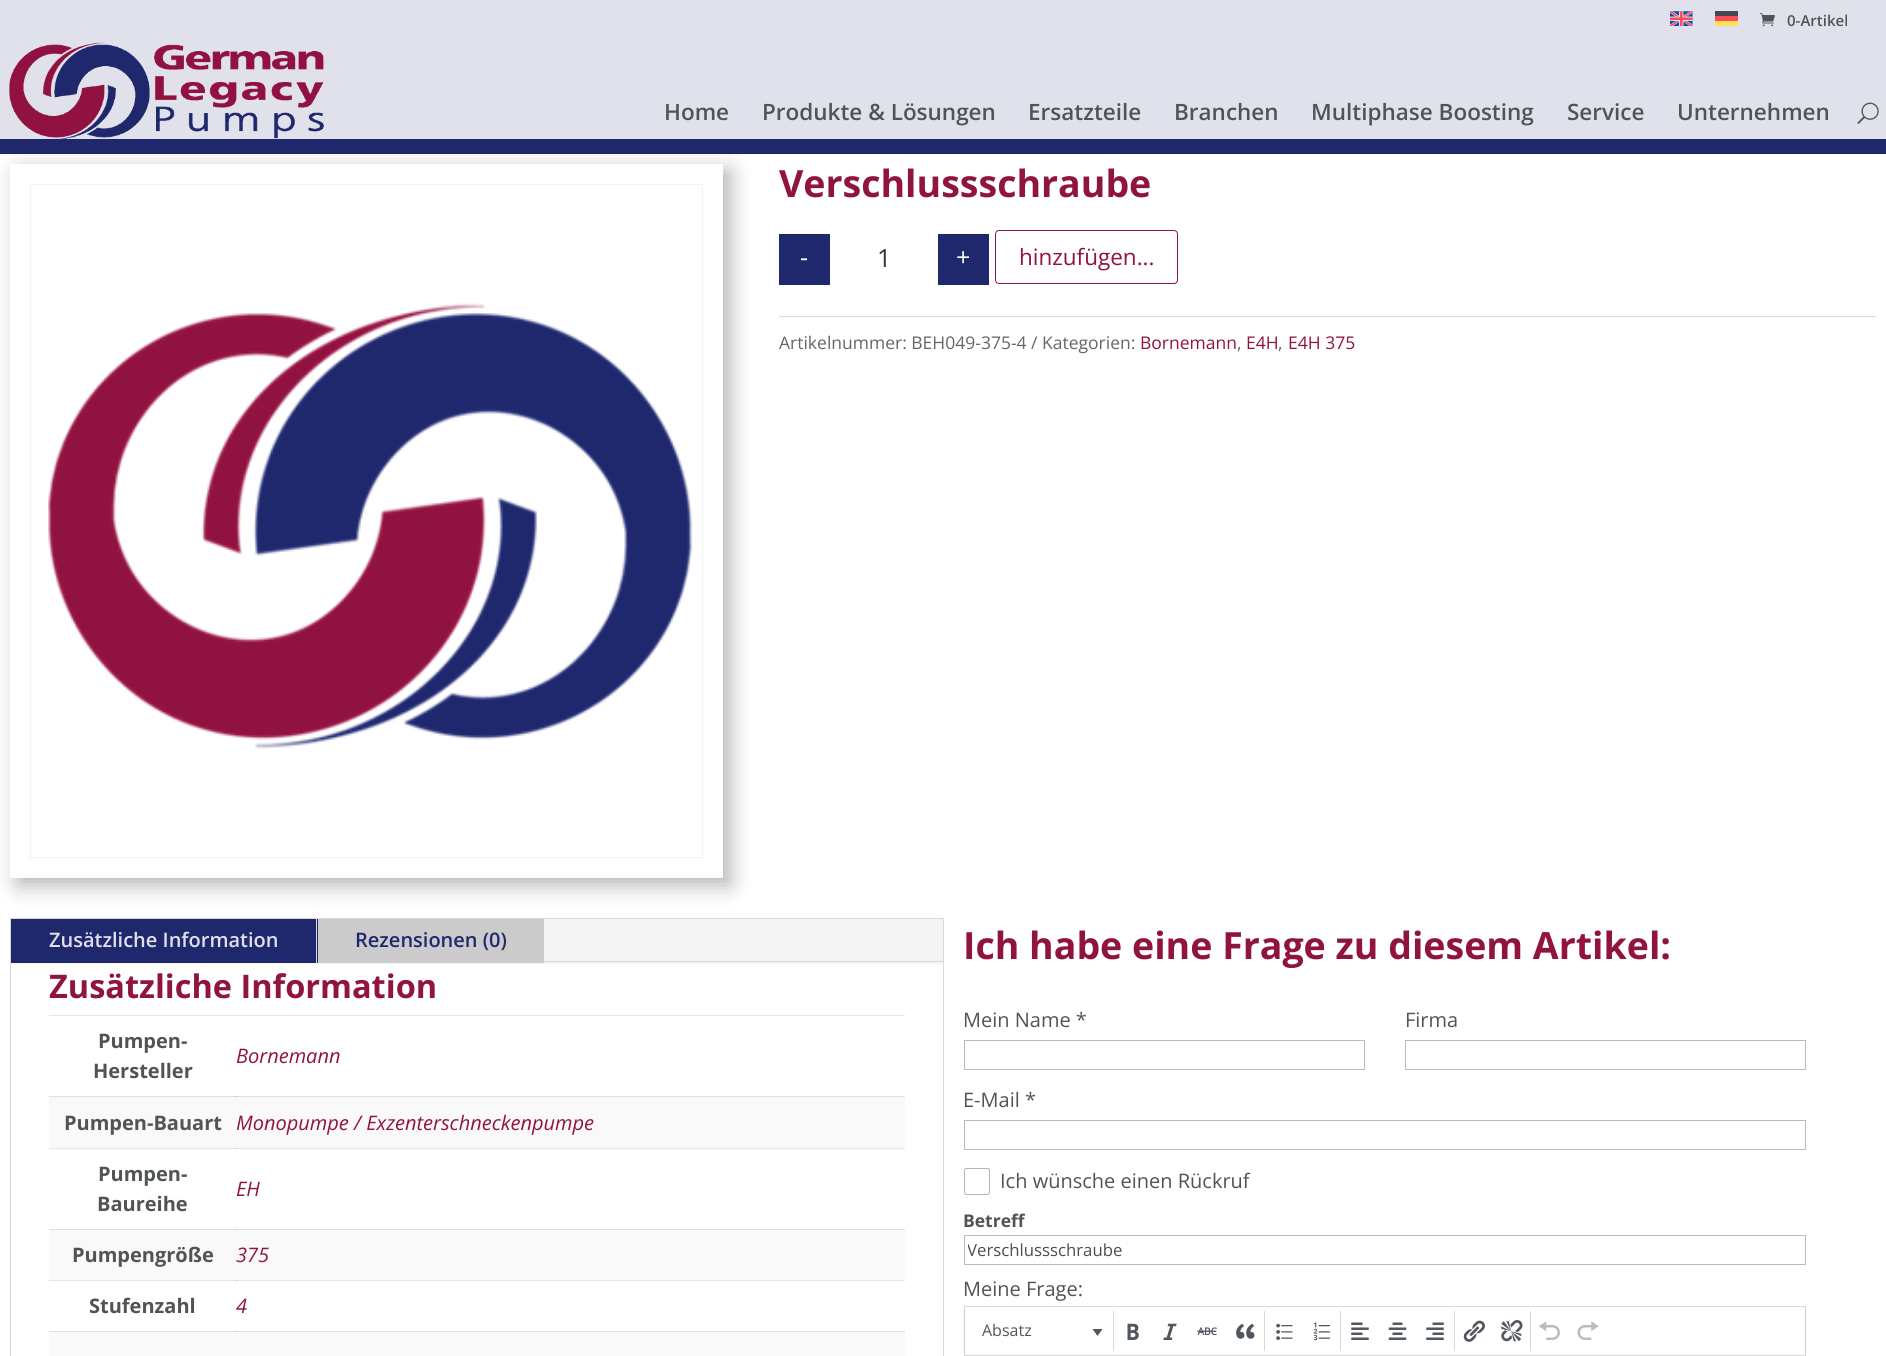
import math
import cairo

surface = cairo.ImageSurface(cairo.FORMAT_RGB24, 1886, 1356)
ctx = cairo.Context(surface)
options = cairo.FontOptions()
options.set_hint_metrics(cairo.HINT_METRICS_OFF)
options.set_hint_style(cairo.HINT_STYLE_NONE)
ctx.set_font_options(options)
ctx.set_miter_limit(4)


def round_rect(x, y, w, h, r):
    ctx.new_sub_path()
    for i, (u, v) in enumerate([(x + w - r, y + h - r), (x + r, y + h - r), (x + r, y + r), (x + w - r, y + r)]):
        ctx.arc(u, v, r, i * math.pi / 2, (i + 1) * math.pi / 2)
    ctx.close_path()


def shadow(x, y, w, h, r, blur, alpha):
    ctx.push_group_with_content(cairo.CONTENT_ALPHA)
    ctx.set_operator(cairo.OPERATOR_SOURCE)
    for i in range(15, -16, -2):
        e = blur * i / 6
        if min(w, h) + 2 * e > 0:
            ctx.set_source_rgba(0, 0, 0, alpha * math.erfc((i - 1) / 8.5) / 2)
            round_rect(x - e, y - e, w + 2 * e, h + 2 * e, max(0, min(r + e + blur * .6, min(w, h) / 2 + e)))
            ctx.fill()
    ctx.mask(ctx.pop_group())


def picture(path, x, y, w, h):
    ctx.save()
    ctx.set_source_surface(cairo.ImageSurface.create_from_png(path), x, y)
    ctx.rectangle(x, y, w, h)
    ctx.fill()
    ctx.restore()


ctx.set_source_rgb(1, 1, 1)
ctx.paint()
ctx.set_source_rgb(0.902, 0.902, 0.902)
ctx.rectangle(49, 1148, 189, 1)
ctx.fill()
ctx.rectangle(49, 1280, 189, 1)
ctx.fill()
ctx.set_source_rgb(0.125, 0.157, 0.427)
ctx.rectangle(0, 139, 1886, 15)
ctx.fill()
ctx.save()
ctx.set_fill_rule(cairo.FILL_RULE_EVEN_ODD)
ctx.new_path()
ctx.move_to(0, 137)
ctx.line_to(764, 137)
ctx.line_to(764, 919)
ctx.line_to(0, 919)
ctx.close_path()
ctx.move_to(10, 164)
ctx.line_to(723, 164)
ctx.line_to(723, 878)
ctx.line_to(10, 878)
ctx.close_path()
ctx.clip()
ctx.set_source_rgb(0, 0, 0)
shadow(18, 171, 712, 714, 0, 11, 0.3)
ctx.restore()
ctx.set_source_rgb(0.882, 0.882, 0.918)
ctx.rectangle(0, 0, 1886, 139)
ctx.fill()
picture("img1.png", 1670, 11, 23, 15)
ctx.set_source_rgb(0.275, 0.275, 0.333)
ctx.rectangle(1715, 11, 23, 5)
ctx.fill()
ctx.set_source_rgb(1, 0.294, 0.333)
ctx.rectangle(1715, 16, 23, 5)
ctx.fill()
ctx.set_source_rgb(1, 0.882, 0.353)
ctx.rectangle(1715, 21, 23, 5)
ctx.fill()
picture("img2.png", 1760, 13, 15, 14)
ctx.select_font_face("Open Sans SemiBold")
ctx.set_font_size(15)
ctx.set_source_rgb(0.314, 0.329, 0.337)
ctx.move_to(1787, 26)
ctx.show_text("0-Artikel")
picture("img3.png", 9, 42, 315, 97)
ctx.set_font_size(22.5)
ctx.move_to(664, 120)
ctx.show_text("Home")
ctx.move_to(762, 120)
ctx.show_text("Produkte & Lösungen")
ctx.move_to(1028, 120)
ctx.show_text("Ersatzteile")
ctx.move_to(1174, 120)
ctx.show_text("Branchen")
ctx.move_to(1311, 120)
ctx.show_text("Multiphase Boosting")
ctx.move_to(1567, 120)
ctx.show_text("Service")
ctx.move_to(1677, 120)
ctx.show_text("Unternehmen")
picture("img4.png", 1857, 102, 22, 22)
ctx.set_source_rgb(0.114, 0.141, 0.384)
ctx.rectangle(1501, 139, 1, 11)
ctx.fill()
ctx.rectangle(30.5, 184.5, 672, 673)
ctx.set_source_rgb(0.949, 0.949, 0.949)
ctx.set_line_width(1)
ctx.stroke()
picture("img5.png", 48, 303, 645, 446)
ctx.select_font_face("Open Sans", cairo.FONT_SLANT_NORMAL, cairo.FONT_WEIGHT_BOLD)
ctx.set_font_size(37.5)
ctx.set_source_rgb(0.569, 0.078, 0.251)
ctx.move_to(779, 197)
ctx.show_text("Verschlussschraube")
ctx.set_source_rgb(0.125, 0.157, 0.427)
ctx.rectangle(779, 234, 51, 51)
ctx.fill()
ctx.select_font_face("Open Sans")
ctx.set_font_size(25)
ctx.set_source_rgb(1, 1, 1)
ctx.move_to(800, 266)
ctx.show_text("-")
ctx.set_source_rgb(0.2, 0.2, 0.2)
ctx.move_to(877, 267)
ctx.show_text("1")
ctx.set_source_rgb(0.125, 0.157, 0.427)
ctx.rectangle(938, 234, 51, 51)
ctx.fill()
ctx.set_source_rgb(1, 1, 1)
ctx.move_to(956, 266)
ctx.show_text("+")
round_rect(995.5, 230.5, 182, 53, 3.5)
ctx.set_source_rgb(0.569, 0.078, 0.251)
ctx.stroke()
ctx.set_font_size(22.5)
ctx.move_to(1019, 265)
ctx.show_text("hinzufügen...")
ctx.set_source_rgb(0.855, 0.855, 0.855)
ctx.rectangle(779, 316, 1097, 1)
ctx.fill()
ctx.set_font_size(17.5)
ctx.set_source_rgb(0.4, 0.4, 0.4)
ctx.move_to(779, 349)
ctx.show_text("Artikelnummer: BEH049-375-4 / Kategorien:")
ctx.set_source_rgb(0.569, 0.078, 0.251)
ctx.move_to(1140, 349)
ctx.show_text("Bornemann")
ctx.set_source_rgb(0.4, 0.4, 0.4)
ctx.move_to(1237, 349)
ctx.show_text(",")
ctx.set_source_rgb(0.569, 0.078, 0.251)
ctx.move_to(1246, 349)
ctx.show_text("E4H")
ctx.set_source_rgb(0.4, 0.4, 0.4)
ctx.move_to(1278, 349)
ctx.show_text(",")
ctx.set_source_rgb(0.569, 0.078, 0.251)
ctx.move_to(1288, 349)
ctx.show_text("E4H 375")
ctx.rectangle(10.5, 918.5, 933, 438)
ctx.set_source_rgb(0.851, 0.851, 0.851)
ctx.stroke()
ctx.set_source_rgb(0.957, 0.957, 0.957)
ctx.rectangle(11, 919, 932, 45)
ctx.fill()
ctx.set_source_rgb(0.125, 0.157, 0.427)
ctx.rectangle(11, 919, 307, 44)
ctx.fill()
ctx.set_source_rgb(0.851, 0.851, 0.851)
ctx.rectangle(316, 919, 1, 44)
ctx.fill()
ctx.select_font_face("Open Sans SemiBold")
ctx.set_font_size(20)
ctx.set_source_rgb(0.882, 0.882, 0.918)
ctx.move_to(49, 947)
ctx.show_text("Zusätzliche Information")
ctx.set_source_rgb(0.796, 0.796, 0.8)
ctx.rectangle(318, 919, 226, 44)
ctx.fill()
ctx.set_source_rgb(0.125, 0.157, 0.427)
ctx.move_to(355, 947)
ctx.show_text("Rezensionen (0)")
ctx.set_source_rgb(0.851, 0.851, 0.851)
ctx.rectangle(544, 961, 399, 1)
ctx.fill()
ctx.select_font_face("Open Sans", cairo.FONT_SLANT_NORMAL, cairo.FONT_WEIGHT_BOLD)
ctx.set_font_size(32.5)
ctx.set_source_rgb(0.569, 0.078, 0.251)
ctx.move_to(49, 998)
ctx.show_text("Zusätzliche Information")
ctx.set_source_rgb(0.902, 0.902, 0.902)
ctx.rectangle(49, 1015, 856, 1)
ctx.fill()
ctx.set_font_size(20)
ctx.set_source_rgb(0.314, 0.329, 0.337)
ctx.move_to(98, 1048)
ctx.show_text("Pumpen-")
ctx.move_to(93, 1078)
ctx.show_text("Hersteller")
ctx.set_source_rgb(0.878, 0.878, 0.878)
ctx.rectangle(49, 1096, 856, 1)
ctx.fill()
ctx.set_source_rgb(0.792, 0.792, 0.792)
ctx.rectangle(236, 1096, 2, 1)
ctx.fill()
ctx.select_font_face("Open Sans", cairo.FONT_SLANT_ITALIC)
ctx.set_source_rgb(0.569, 0.078, 0.251)
ctx.move_to(236, 1063)
ctx.show_text("Bornemann")
ctx.set_source_rgb(0.976, 0.976, 0.976)
ctx.rectangle(49, 1097, 856, 51)
ctx.fill()
ctx.select_font_face("Open Sans", cairo.FONT_SLANT_NORMAL, cairo.FONT_WEIGHT_BOLD)
ctx.set_source_rgb(0.314, 0.329, 0.337)
ctx.move_to(64, 1130)
ctx.show_text("Pumpen-Bauart")
ctx.set_source_rgb(0.902, 0.902, 0.902)
ctx.rectangle(236, 1148, 669, 1)
ctx.fill()
ctx.set_source_rgb(0.812, 0.812, 0.812)
ctx.rectangle(236, 1148, 2, 1)
ctx.fill()
ctx.select_font_face("Open Sans", cairo.FONT_SLANT_ITALIC)
ctx.set_source_rgb(0.569, 0.078, 0.251)
ctx.move_to(236, 1130)
ctx.show_text("Monopumpe / Exzenterschneckenpumpe")
ctx.select_font_face("Open Sans", cairo.FONT_SLANT_NORMAL, cairo.FONT_WEIGHT_BOLD)
ctx.set_source_rgb(0.314, 0.329, 0.337)
ctx.move_to(98, 1181)
ctx.show_text("Pumpen-")
ctx.move_to(97, 1211)
ctx.show_text("Baureihe")
ctx.set_source_rgb(0.878, 0.878, 0.878)
ctx.rectangle(49, 1229, 856, 1)
ctx.fill()
ctx.set_source_rgb(0.792, 0.792, 0.792)
ctx.rectangle(236, 1229, 2, 1)
ctx.fill()
ctx.select_font_face("Open Sans", cairo.FONT_SLANT_ITALIC)
ctx.set_source_rgb(0.569, 0.078, 0.251)
ctx.move_to(236, 1196)
ctx.show_text("EH")
ctx.set_source_rgb(0.976, 0.976, 0.976)
ctx.rectangle(49, 1230, 856, 50)
ctx.fill()
ctx.select_font_face("Open Sans", cairo.FONT_SLANT_NORMAL, cairo.FONT_WEIGHT_BOLD)
ctx.set_source_rgb(0.314, 0.329, 0.337)
ctx.move_to(72, 1262)
ctx.show_text("Pumpengröße")
ctx.set_source_rgb(0.902, 0.902, 0.902)
ctx.rectangle(236, 1280, 669, 1)
ctx.fill()
ctx.set_source_rgb(0.812, 0.812, 0.812)
ctx.rectangle(236, 1280, 2, 1)
ctx.fill()
ctx.select_font_face("Open Sans", cairo.FONT_SLANT_ITALIC)
ctx.set_source_rgb(0.569, 0.078, 0.251)
ctx.move_to(236, 1262)
ctx.show_text("375")
ctx.select_font_face("Open Sans", cairo.FONT_SLANT_NORMAL, cairo.FONT_WEIGHT_BOLD)
ctx.set_source_rgb(0.314, 0.329, 0.337)
ctx.move_to(89, 1313)
ctx.show_text("Stufenzahl")
ctx.set_source_rgb(0.878, 0.878, 0.878)
ctx.rectangle(49, 1331, 856, 1)
ctx.fill()
ctx.set_source_rgb(0.792, 0.792, 0.792)
ctx.rectangle(236, 1331, 2, 1)
ctx.fill()
ctx.select_font_face("Open Sans", cairo.FONT_SLANT_ITALIC)
ctx.set_source_rgb(0.569, 0.078, 0.251)
ctx.move_to(236, 1313)
ctx.show_text("4")
ctx.set_source_rgb(0.976, 0.976, 0.976)
ctx.rectangle(49, 1332, 856, 24)
ctx.fill()
ctx.select_font_face("Open Sans", cairo.FONT_SLANT_NORMAL, cairo.FONT_WEIGHT_BOLD)
ctx.set_font_size(37.5)
ctx.set_source_rgb(0.569, 0.078, 0.251)
ctx.move_to(963, 959)
ctx.show_text("Ich habe eine Frage zu diesem Artikel:")
ctx.select_font_face("Open Sans")
ctx.set_font_size(20)
ctx.set_source_rgb(0.314, 0.329, 0.337)
ctx.move_to(963, 1027)
ctx.show_text("Mein Name *")
ctx.rectangle(964.5, 1040.5, 400, 29)
ctx.set_source_rgb(0.733, 0.733, 0.733)
ctx.stroke()
ctx.set_source_rgb(0.314, 0.329, 0.337)
ctx.move_to(1405, 1027)
ctx.show_text("Firma")
ctx.rectangle(1405.5, 1040.5, 400, 29)
ctx.set_source_rgb(0.733, 0.733, 0.733)
ctx.stroke()
ctx.set_source_rgb(0.314, 0.329, 0.337)
ctx.move_to(963, 1107)
ctx.show_text("E-Mail *")
ctx.rectangle(964.5, 1120.5, 841, 29)
ctx.set_source_rgb(0.733, 0.733, 0.733)
ctx.stroke()
round_rect(964.5, 1168.5, 25, 26, 2)
ctx.set_source_rgb(0.678, 0.71, 0.741)
ctx.stroke()
ctx.set_source_rgb(0.314, 0.329, 0.337)
ctx.move_to(1000, 1188)
ctx.show_text("Ich wünsche einen Rückruf")
ctx.select_font_face("Open Sans", cairo.FONT_SLANT_NORMAL, cairo.FONT_WEIGHT_BOLD)
ctx.set_font_size(17.5)
ctx.move_to(963, 1227)
ctx.show_text("Betreff")
ctx.rectangle(964.5, 1235.5, 841, 29)
ctx.set_source_rgb(0.733, 0.733, 0.733)
ctx.stroke()
ctx.save()
ctx.rectangle(968, 1239, 835, 22)
ctx.clip()
ctx.select_font_face("Open Sans")
ctx.set_font_size(16.75)
ctx.set_source_rgb(0.306, 0.306, 0.306)
ctx.move_to(967, 1256)
ctx.show_text("Verschlussschraube")
ctx.restore()
ctx.select_font_face("Open Sans")
ctx.set_font_size(20)
ctx.set_source_rgb(0.314, 0.329, 0.337)
ctx.move_to(963, 1296)
ctx.show_text("Meine Frage:")
ctx.rectangle(964.5, 1306.5, 841, 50)
ctx.set_source_rgb(0.863, 0.863, 0.871)
ctx.stroke()
ctx.save()
ctx.set_fill_rule(cairo.FILL_RULE_EVEN_ODD)
ctx.new_path()
ctx.move_to(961, 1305)
ctx.line_to(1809, 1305)
ctx.line_to(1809, 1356)
ctx.line_to(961, 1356)
ctx.close_path()
ctx.move_to(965, 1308)
ctx.line_to(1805, 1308)
ctx.line_to(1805, 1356)
ctx.line_to(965, 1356)
ctx.close_path()
ctx.clip()
ctx.set_source_rgb(0, 0, 0)
shadow(965, 1309, 840, 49, 0, 1, 0.2)
ctx.restore()
ctx.rectangle(965, 1355, 840, 1)
ctx.fill()
ctx.set_font_size(16)
ctx.set_source_rgb(0.314, 0.341, 0.369)
ctx.move_to(982, 1336)
ctx.show_text("Absatz")
ctx.new_path()
ctx.move_to(1092.5, 1329)
ctx.line_to(1102.5, 1329)
ctx.line_to(1097.5, 1336)
ctx.close_path()
ctx.fill()
ctx.set_source_rgb(0.851, 0.851, 0.851)
ctx.rectangle(1113, 1311, 1, 40)
ctx.fill()
picture("img6.png", 1127, 1323, 12, 17)
picture("img7.png", 1163, 1323, 14, 17)
picture("img8.png", 1197, 1327, 20, 9)
picture("img9.png", 1236, 1323, 19, 16)
ctx.rectangle(1264, 1311, 1, 40)
ctx.fill()
picture("img10.png", 1276, 1323, 17, 17)
picture("img11.png", 1313, 1322, 17, 19)
ctx.rectangle(1340, 1311, 1, 40)
ctx.fill()
picture("img12.png", 1351, 1322, 18, 18)
picture("img13.png", 1388, 1322, 19, 18)
picture("img14.png", 1426, 1322, 18, 18)
ctx.rectangle(1454, 1311, 1, 40)
ctx.fill()
picture("img15.png", 1463, 1320, 22, 22)
picture("img16.png", 1501, 1320, 22, 22)
ctx.rectangle(1530, 1311, 1, 40)
ctx.fill()
picture("img17.png", 1539, 1321, 21, 19)
picture("img18.png", 1577, 1321, 22, 19)
surface.write_to_png("page.png")
